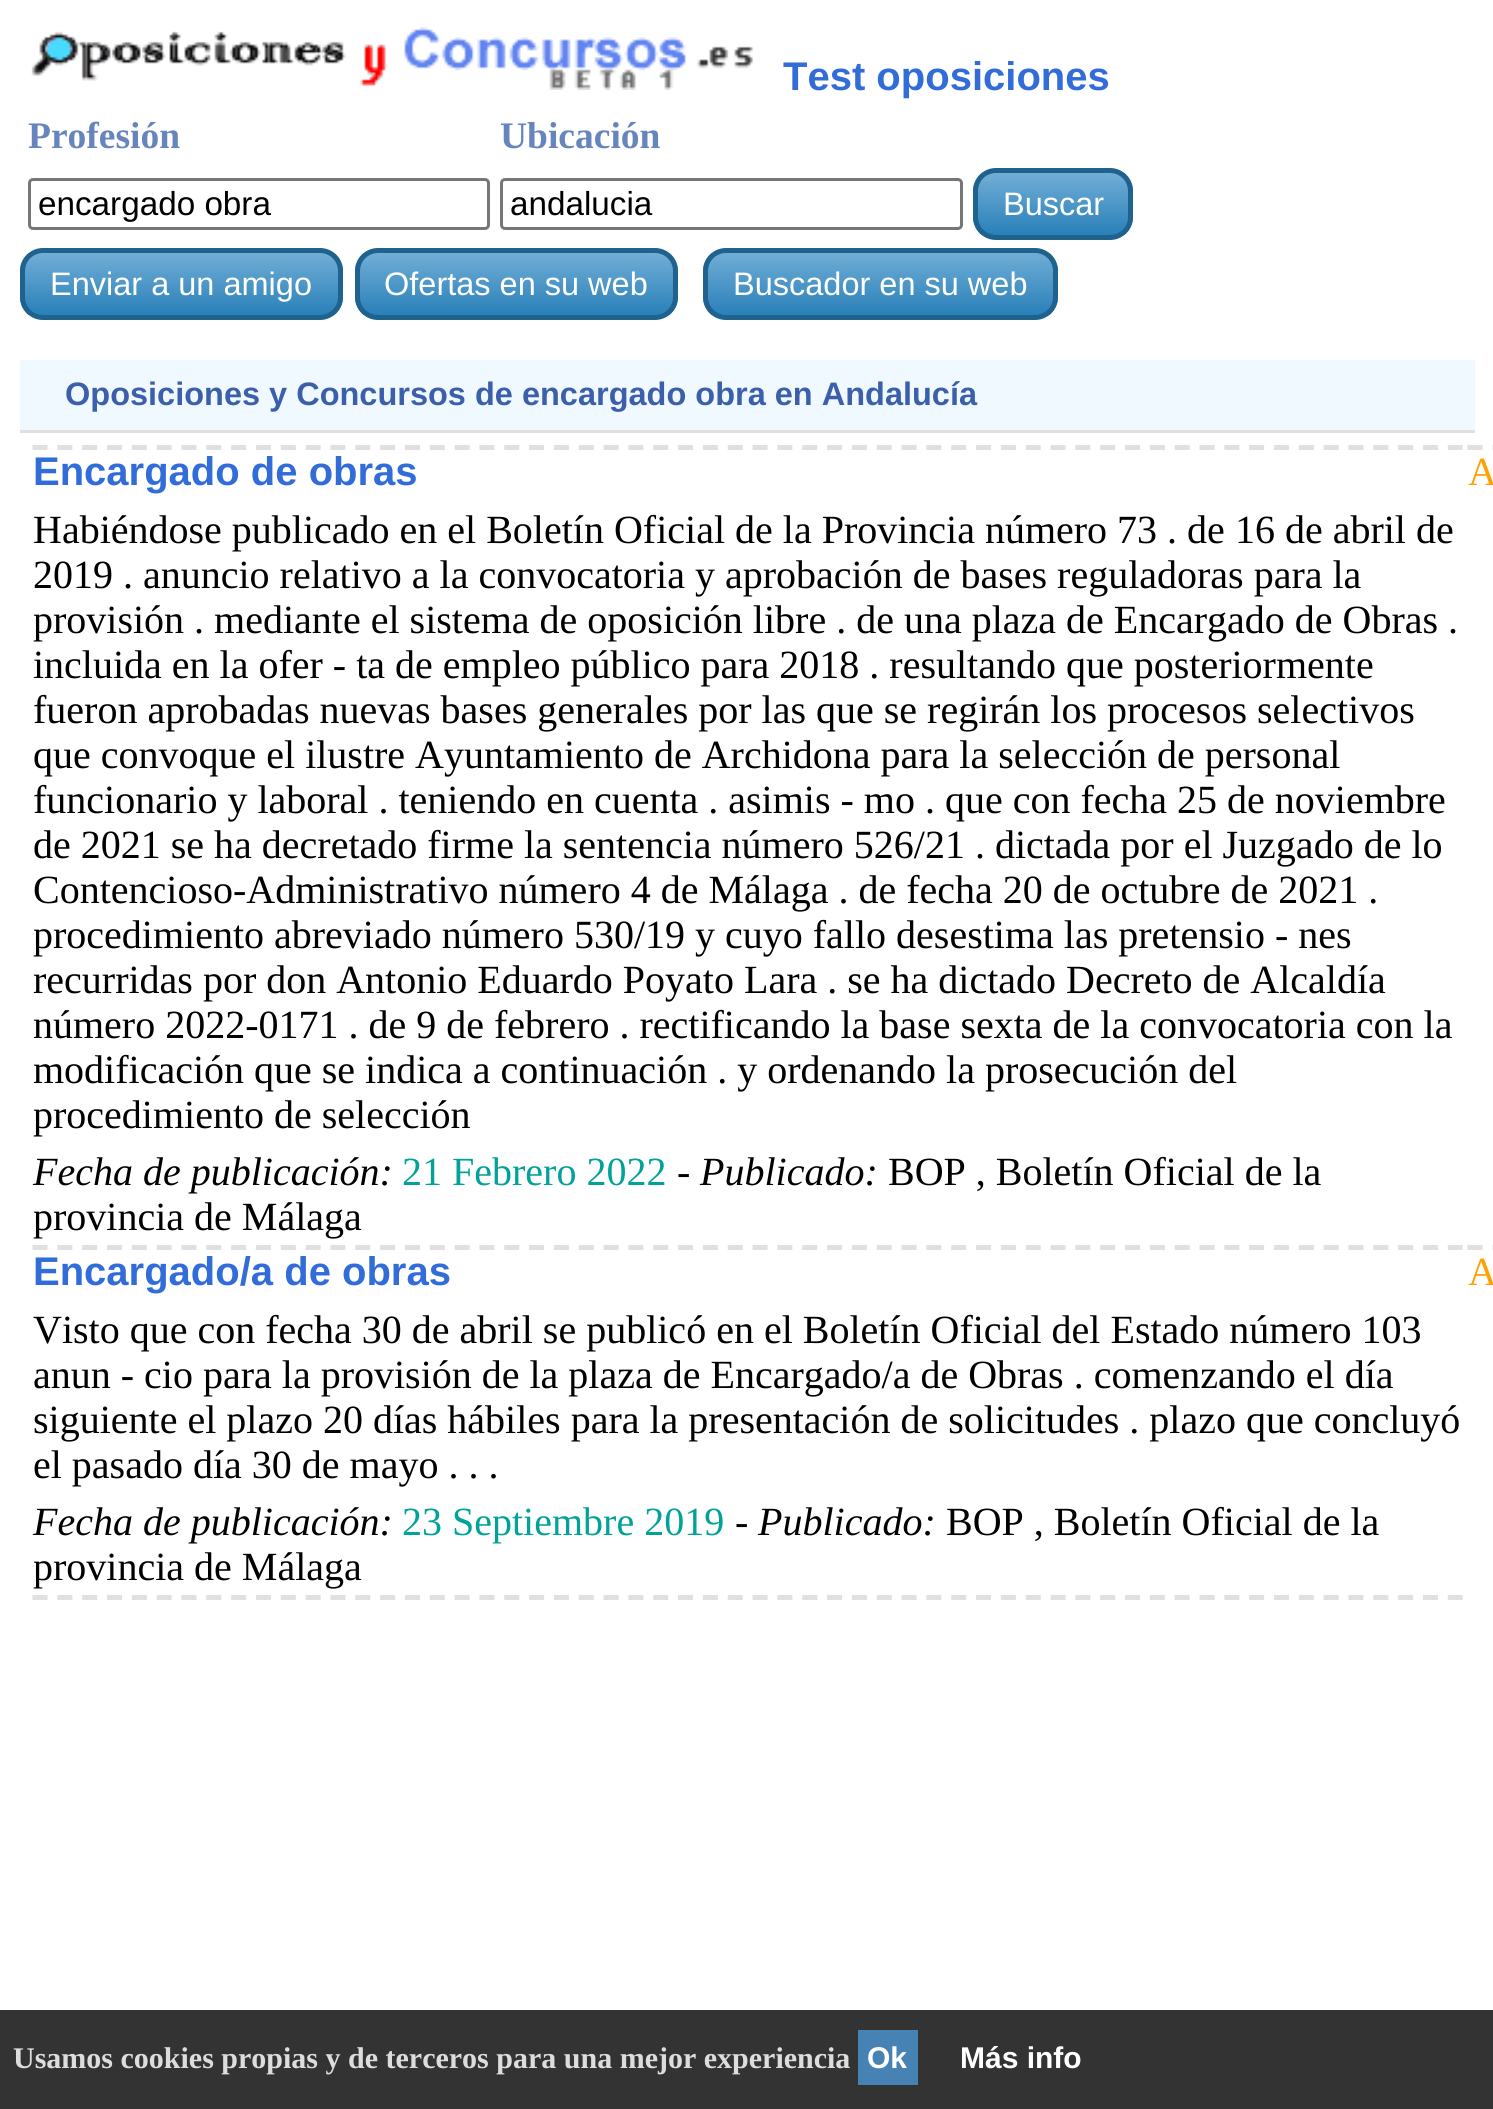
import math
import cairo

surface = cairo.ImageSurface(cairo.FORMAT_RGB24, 1493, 2109)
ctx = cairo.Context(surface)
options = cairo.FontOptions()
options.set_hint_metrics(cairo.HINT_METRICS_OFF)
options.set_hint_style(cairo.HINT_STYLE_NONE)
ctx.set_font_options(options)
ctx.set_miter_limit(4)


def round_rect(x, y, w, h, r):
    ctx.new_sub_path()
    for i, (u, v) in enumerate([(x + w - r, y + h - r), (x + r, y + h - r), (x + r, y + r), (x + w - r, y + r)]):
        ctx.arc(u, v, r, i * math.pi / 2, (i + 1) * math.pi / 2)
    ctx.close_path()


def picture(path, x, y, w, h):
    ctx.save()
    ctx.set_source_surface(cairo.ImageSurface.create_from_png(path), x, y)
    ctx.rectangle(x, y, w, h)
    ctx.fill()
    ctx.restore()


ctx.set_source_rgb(1, 1, 1)
ctx.paint()
picture("img1.png", 31, 27, 722, 63)
ctx.select_font_face("Liberation Sans", cairo.FONT_SLANT_NORMAL, cairo.FONT_WEIGHT_BOLD)
ctx.set_font_size(40)
ctx.set_source_rgb(0.196, 0.424, 0.851)
ctx.move_to(783, 90)
ctx.show_text("Test oposiciones")
ctx.select_font_face("Liberation Serif", cairo.FONT_SLANT_NORMAL, cairo.FONT_WEIGHT_BOLD)
ctx.set_font_size(37.5)
ctx.set_source_rgb(0.4, 0.522, 0.749)
ctx.move_to(28, 148)
ctx.show_text("Profesión")
ctx.move_to(500, 148)
ctx.show_text("Ubicación")
round_rect(29.5, 179.5, 459, 49, 3.5)
ctx.set_source_rgb(0.463, 0.463, 0.463)
ctx.set_line_width(3)
ctx.stroke()
ctx.select_font_face("Liberation Sans")
ctx.set_font_size(33.25)
ctx.set_source_rgb(0, 0, 0)
ctx.move_to(38, 215)
ctx.show_text("encargado obra")
round_rect(501.5, 179.5, 460, 49, 3.5)
ctx.set_source_rgb(0.463, 0.463, 0.463)
ctx.stroke()
ctx.set_source_rgb(0, 0, 0)
ctx.move_to(510, 215)
ctx.show_text("andalucia")
ctx.save()
round_rect(973, 168, 160, 72, 23)
ctx.clip()
gradient = cairo.LinearGradient(1053, 173, 1053, 235)
gradient.add_color_stop_rgba(0, 0.443, 0.682, 0.839, 1)
gradient.add_color_stop_rgba(1, 0.161, 0.502, 0.725, 1)
ctx.set_source(gradient)
ctx.rectangle(973, 173, 160, 62)
ctx.fill()
ctx.restore()
round_rect(975.5, 170.5, 155, 67, 20.5)
ctx.set_source_rgb(0.122, 0.384, 0.553)
ctx.set_line_width(5)
ctx.stroke()
ctx.set_font_size(32.5)
ctx.set_source_rgb(1, 1, 1)
ctx.move_to(1003, 215)
ctx.show_text("Buscar")
ctx.save()
round_rect(20, 248, 323, 72, 23)
ctx.clip()
gradient = cairo.LinearGradient(181, 253, 181, 315)
gradient.add_color_stop_rgba(0, 0.443, 0.682, 0.839, 1)
gradient.add_color_stop_rgba(1, 0.161, 0.502, 0.725, 1)
ctx.set_source(gradient)
ctx.rectangle(20, 253, 323, 62)
ctx.fill()
ctx.restore()
round_rect(22.5, 250.5, 318, 67, 20.5)
ctx.set_source_rgb(0.122, 0.384, 0.553)
ctx.stroke()
ctx.set_source_rgb(1, 1, 1)
ctx.move_to(50, 295)
ctx.show_text("Enviar a un amigo")
ctx.save()
round_rect(355, 248, 323, 72, 23)
ctx.clip()
gradient = cairo.LinearGradient(516, 253, 516, 315)
gradient.add_color_stop_rgba(0, 0.443, 0.682, 0.839, 1)
gradient.add_color_stop_rgba(1, 0.161, 0.502, 0.725, 1)
ctx.set_source(gradient)
ctx.rectangle(355, 253, 323, 62)
ctx.fill()
ctx.restore()
round_rect(357.5, 250.5, 318, 67, 20.5)
ctx.set_source_rgb(0.122, 0.384, 0.553)
ctx.stroke()
ctx.set_source_rgb(1, 1, 1)
ctx.move_to(384, 295)
ctx.show_text("Ofertas en su web")
ctx.save()
round_rect(703, 248, 355, 72, 23)
ctx.clip()
gradient = cairo.LinearGradient(880, 252, 880, 315)
gradient.add_color_stop_rgba(0, 0.443, 0.682, 0.839, 1)
gradient.add_color_stop_rgba(1, 0.161, 0.502, 0.725, 1)
ctx.set_source(gradient)
ctx.rectangle(703, 253, 355, 62)
ctx.fill()
ctx.restore()
round_rect(705.5, 250.5, 350, 67, 20.5)
ctx.set_source_rgb(0.122, 0.384, 0.553)
ctx.stroke()
ctx.set_source_rgb(1, 1, 1)
ctx.move_to(733, 295)
ctx.show_text("Buscador en su web")
ctx.set_source_rgb(0.941, 0.973, 1)
ctx.rectangle(20, 360, 1455, 70)
ctx.fill()
ctx.set_source_rgb(0.878, 0.878, 0.878)
ctx.rectangle(20, 430, 1455, 3)
ctx.fill()
ctx.select_font_face("Liberation Sans", cairo.FONT_SLANT_NORMAL, cairo.FONT_WEIGHT_BOLD)
ctx.set_source_rgb(0.231, 0.373, 0.671)
ctx.move_to(65, 405)
ctx.show_text("Oposiciones y Concursos de encargado obra en Andalucía")
ctx.new_path()
ctx.move_to(32.5, 447.5)
ctx.line_to(1462.5, 447.5)
ctx.set_source_rgb(0.878, 0.878, 0.878)
ctx.set_dash([15, 9.83])
ctx.stroke()
ctx.set_font_size(40)
ctx.set_source_rgb(0.196, 0.424, 0.851)
ctx.move_to(33, 485)
ctx.show_text("Encargado de obras")
ctx.select_font_face("Liberation Serif")
ctx.set_source_rgb(0, 0, 0)
ctx.move_to(33, 543)
ctx.show_text("Habiéndose publicado en el Boletín Oficial de la Provincia número 73 . de 16 de abril de")
ctx.move_to(33, 588)
ctx.show_text("2019 . anuncio relativo a la convocatoria y aprobación de bases reguladoras para la")
ctx.move_to(33, 633)
ctx.show_text("provisión . mediante el sistema de oposición libre . de una plaza de Encargado de Obras .")
ctx.move_to(33, 678)
ctx.show_text("incluida en la ofer - ta de empleo público para 2018 . resultando que posteriormente")
ctx.move_to(33, 723)
ctx.show_text("fueron aprobadas nuevas bases generales por las que se regirán los procesos selectivos")
ctx.move_to(33, 768)
ctx.show_text("que convoque el ilustre Ayuntamiento de Archidona para la selección de personal")
ctx.move_to(33, 813)
ctx.show_text("funcionario y laboral . teniendo en cuenta . asimis - mo . que con fecha 25 de noviembre")
ctx.move_to(33, 858)
ctx.show_text("de 2021 se ha decretado firme la sentencia número 526/21 . dictada por el Juzgado de lo")
ctx.move_to(33, 903)
ctx.show_text("Contencioso-Administrativo número 4 de Málaga . de fecha 20 de octubre de 2021 .")
ctx.move_to(33, 948)
ctx.show_text("procedimiento abreviado número 530/19 y cuyo fallo desestima las pretensio - nes")
ctx.move_to(33, 993)
ctx.show_text("recurridas por don Antonio Eduardo Poyato Lara . se ha dictado Decreto de Alcaldía")
ctx.move_to(33, 1038)
ctx.show_text("número 2022-0171 . de 9 de febrero . rectificando la base sexta de la convocatoria con la")
ctx.move_to(33, 1083)
ctx.show_text("modificación que se indica a continuación . y ordenando la prosecución del")
ctx.move_to(33, 1128)
ctx.show_text("procedimiento de selección")
ctx.select_font_face("Liberation Serif", cairo.FONT_SLANT_ITALIC)
ctx.move_to(33, 1185)
ctx.show_text("Fecha de publicación:")
ctx.select_font_face("Liberation Serif")
ctx.set_source_rgb(0.004, 0.635, 0.592)
ctx.move_to(402, 1185)
ctx.show_text("21 Febrero 2022")
ctx.set_source_rgb(0, 0, 0)
ctx.move_to(677, 1185)
ctx.show_text("-")
ctx.select_font_face("Liberation Serif", cairo.FONT_SLANT_ITALIC)
ctx.move_to(700, 1185)
ctx.show_text("Publicado:")
ctx.select_font_face("Liberation Serif")
ctx.move_to(888, 1185)
ctx.show_text("BOP , Boletín Oficial de la")
ctx.move_to(33, 1230)
ctx.show_text("provincia de Málaga")
ctx.new_path()
ctx.move_to(1467.5, 447.5)
ctx.line_to(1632.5, 447.5)
ctx.set_source_rgb(0.878, 0.878, 0.878)
ctx.set_dash([15, 10])
ctx.stroke()
ctx.set_source_rgb(1, 0.635, 0.004)
ctx.move_to(1468, 485)
ctx.show_text("A")
ctx.new_path()
ctx.move_to(32.5, 1247.5)
ctx.line_to(1462.5, 1247.5)
ctx.set_source_rgb(0.878, 0.878, 0.878)
ctx.set_dash([15, 9.83])
ctx.stroke()
ctx.select_font_face("Liberation Sans", cairo.FONT_SLANT_NORMAL, cairo.FONT_WEIGHT_BOLD)
ctx.set_source_rgb(0.196, 0.424, 0.851)
ctx.move_to(33, 1285)
ctx.show_text("Encargado/a de obras")
ctx.select_font_face("Liberation Serif")
ctx.set_source_rgb(0, 0, 0)
ctx.move_to(33, 1343)
ctx.show_text("Visto que con fecha 30 de abril se publicó en el Boletín Oficial del Estado número 103")
ctx.move_to(33, 1388)
ctx.show_text("anun - cio para la provisión de la plaza de Encargado/a de Obras . comenzando el día")
ctx.move_to(33, 1433)
ctx.show_text("siguiente el plazo 20 días hábiles para la presentación de solicitudes . plazo que concluyó")
ctx.move_to(33, 1478)
ctx.show_text("el pasado día 30 de mayo . . .")
ctx.select_font_face("Liberation Serif", cairo.FONT_SLANT_ITALIC)
ctx.move_to(33, 1535)
ctx.show_text("Fecha de publicación:")
ctx.select_font_face("Liberation Serif")
ctx.set_source_rgb(0.004, 0.635, 0.592)
ctx.move_to(402, 1535)
ctx.show_text("23 Septiembre 2019")
ctx.set_source_rgb(0, 0, 0)
ctx.move_to(735, 1535)
ctx.show_text("-")
ctx.select_font_face("Liberation Serif", cairo.FONT_SLANT_ITALIC)
ctx.move_to(758, 1535)
ctx.show_text("Publicado:")
ctx.select_font_face("Liberation Serif")
ctx.move_to(946, 1535)
ctx.show_text("BOP , Boletín Oficial de la")
ctx.move_to(33, 1580)
ctx.show_text("provincia de Málaga")
ctx.new_path()
ctx.move_to(1467.5, 1247.5)
ctx.line_to(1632.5, 1247.5)
ctx.set_source_rgb(0.878, 0.878, 0.878)
ctx.set_dash([15, 10])
ctx.stroke()
ctx.set_source_rgb(1, 0.635, 0.004)
ctx.move_to(1468, 1285)
ctx.show_text("A")
ctx.new_path()
ctx.move_to(32.5, 1597.5)
ctx.line_to(1462.5, 1597.5)
ctx.set_source_rgb(0.878, 0.878, 0.878)
ctx.set_dash([15, 9.83])
ctx.stroke()
ctx.set_source_rgb(0.2, 0.2, 0.2)
ctx.rectangle(0, 2010, 1493, 99)
ctx.fill()
ctx.select_font_face("Liberation Serif", cairo.FONT_SLANT_NORMAL, cairo.FONT_WEIGHT_BOLD)
ctx.set_font_size(30)
ctx.set_source_rgb(0.867, 0.867, 0.867)
ctx.move_to(13, 2068)
ctx.show_text("Usamos cookies propias y de terceros para una mejor experiencia")
ctx.set_source_rgb(0.275, 0.51, 0.706)
ctx.rectangle(858, 2030, 60, 55)
ctx.fill()
ctx.select_font_face("Liberation Sans", cairo.FONT_SLANT_NORMAL, cairo.FONT_WEIGHT_BOLD)
ctx.set_source_rgb(1, 1, 1)
ctx.move_to(867, 2068)
ctx.show_text("Ok")
ctx.move_to(960, 2068)
ctx.show_text("Más info")
surface.write_to_png("page.png")
